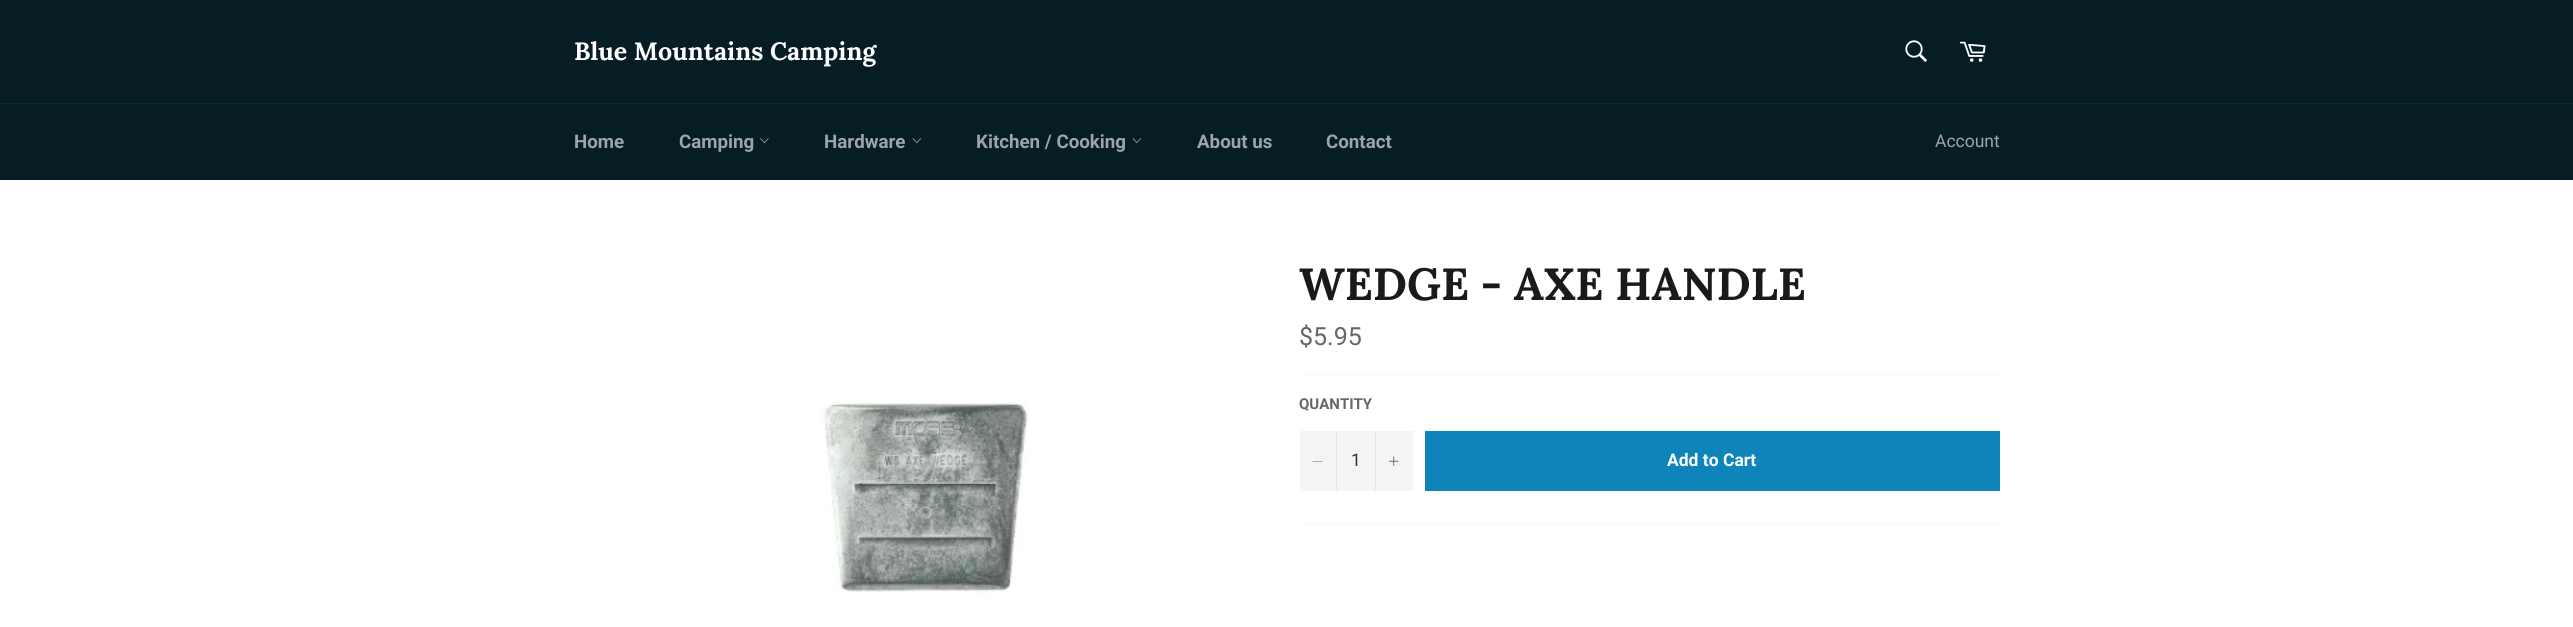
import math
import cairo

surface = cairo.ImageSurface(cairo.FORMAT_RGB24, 2573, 627)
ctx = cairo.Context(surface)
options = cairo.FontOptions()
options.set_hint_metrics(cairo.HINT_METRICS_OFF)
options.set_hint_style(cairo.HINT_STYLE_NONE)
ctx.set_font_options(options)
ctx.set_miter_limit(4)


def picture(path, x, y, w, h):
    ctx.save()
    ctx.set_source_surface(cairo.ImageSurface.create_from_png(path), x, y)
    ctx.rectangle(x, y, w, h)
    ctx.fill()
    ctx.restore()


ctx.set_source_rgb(1, 1, 1)
ctx.paint()
ctx.set_source_rgb(0.027, 0.114, 0.137)
ctx.rectangle(0, 0, 2573, 103)
ctx.fill()
ctx.select_font_face("Lora", cairo.FONT_SLANT_NORMAL, cairo.FONT_WEIGHT_BOLD)
ctx.set_font_size(25)
ctx.set_source_rgb(1, 1, 1)
ctx.move_to(574, 60)
ctx.show_text("Blue Mountains Camping")
picture("img1.png", 1905, 40, 22, 22)
picture("img2.png", 1959, 41, 27, 21)
ctx.set_source_rgb(0.027, 0.114, 0.137)
ctx.rectangle(0, 104, 2573, 76)
ctx.fill()
ctx.set_source_rgb(0.043, 0.184, 0.22)
ctx.rectangle(0, 103, 2573, 1)
ctx.fill()
ctx.select_font_face("Roboto", cairo.FONT_SLANT_NORMAL, cairo.FONT_WEIGHT_BOLD)
ctx.set_font_size(18.75)
ctx.set_source_rgb(0.612, 0.647, 0.655)
ctx.move_to(574, 148)
ctx.show_text("Home")
ctx.move_to(679, 148)
ctx.show_text("Camping")
picture("img3.png", 760, 138, 9, 6)
ctx.move_to(824, 148)
ctx.show_text("Hardware")
picture("img4.png", 912, 138, 10, 6)
ctx.move_to(976, 148)
ctx.show_text("Kitchen / Cooking")
picture("img4.png", 1132, 138, 10, 6)
ctx.move_to(1197, 148)
ctx.show_text("About us")
ctx.move_to(1326, 148)
ctx.show_text("Contact")
ctx.select_font_face("Roboto")
ctx.set_font_size(17.5)
ctx.move_to(1935, 147)
ctx.show_text("Account")
ctx.select_font_face("Lora", cairo.FONT_SLANT_NORMAL, cairo.FONT_WEIGHT_BOLD)
ctx.set_font_size(45)
ctx.set_source_rgb(0.102, 0.102, 0.102)
ctx.move_to(1299, 300)
ctx.show_text("WEDGE - AXE HANDLE")
ctx.select_font_face("Roboto")
ctx.set_font_size(25)
ctx.set_source_rgb(0.4, 0.4, 0.4)
ctx.move_to(1299, 345)
ctx.show_text("$5.95")
ctx.set_source_rgb(0.969, 0.969, 0.969)
ctx.rectangle(1300, 374, 700, 1)
ctx.fill()
ctx.select_font_face("Roboto", cairo.FONT_SLANT_NORMAL, cairo.FONT_WEIGHT_BOLD)
ctx.set_font_size(15)
ctx.set_source_rgb(0.4, 0.4, 0.4)
ctx.move_to(1299, 409)
ctx.show_text("QUANTITY")
ctx.set_source_rgb(0.957, 0.957, 0.957)
ctx.rectangle(1300, 431, 113, 60)
ctx.fill()
ctx.set_source_rgb(0.906, 0.906, 0.906)
ctx.rectangle(1336, 431, 1, 60)
ctx.fill()
ctx.set_source_rgb(0.4, 0.4, 0.4)
ctx.set_fill_rule(cairo.FILL_RULE_EVEN_ODD)
ctx.new_path()
ctx.move_to(1322.5, 461)
ctx.line_to(1322.5, 461.5)
ctx.line_to(1312.5, 461.5)
ctx.line_to(1312.5, 461)
ctx.close_path()
ctx.fill()
ctx.select_font_face("Roboto")
ctx.set_font_size(17.5)
ctx.set_source_rgb(0.2, 0.2, 0.2)
ctx.move_to(1351, 466)
ctx.show_text("1")
ctx.set_source_rgb(0.906, 0.906, 0.906)
ctx.rectangle(1375, 431, 1, 60)
ctx.fill()
picture("img5.png", 1389, 456, 10, 10)
ctx.set_source_rgb(0.059, 0.518, 0.733)
ctx.rectangle(1425, 431, 575, 60)
ctx.fill()
ctx.select_font_face("Roboto", cairo.FONT_SLANT_NORMAL, cairo.FONT_WEIGHT_BOLD)
ctx.set_source_rgb(1, 1, 1)
ctx.move_to(1667, 466)
ctx.show_text("Add to Cart")
ctx.set_source_rgb(0.969, 0.969, 0.969)
ctx.rectangle(1300, 523, 700, 1)
ctx.fill()
picture("img6.png", 821, 403, 208, 191)
surface.write_to_png("page.png")
